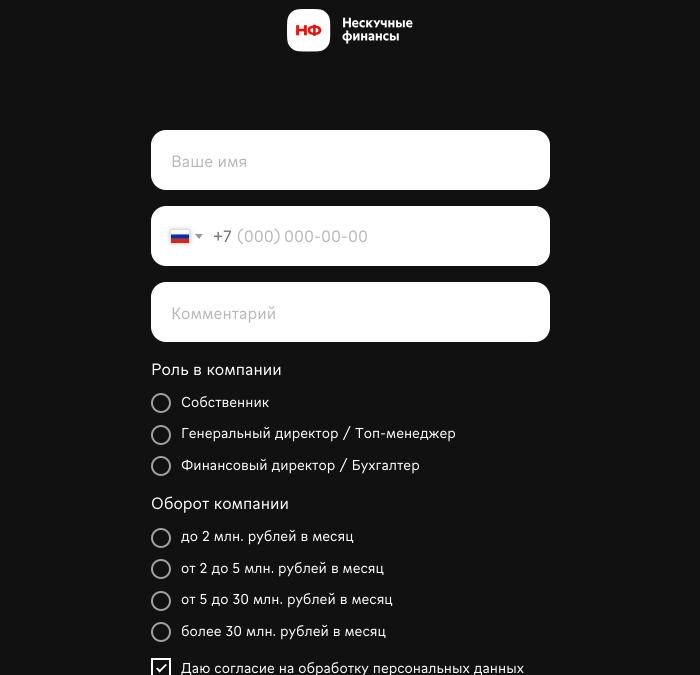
import math
import cairo

surface = cairo.ImageSurface(cairo.FORMAT_RGB24, 700, 675)
ctx = cairo.Context(surface)
options = cairo.FontOptions()
options.set_hint_metrics(cairo.HINT_METRICS_OFF)
options.set_hint_style(cairo.HINT_STYLE_NONE)
ctx.set_font_options(options)
ctx.set_miter_limit(4)


def spaced_text(x, y, s, letter, word):
    ctx.move_to(x, y)
    for ch in s:
        ctx.show_text(ch)
        ctx.rel_move_to(letter + word * (ch == ' '), 0)


def round_rect(x, y, w, h, r):
    ctx.new_sub_path()
    for i, (u, v) in enumerate([(x + w - r, y + h - r), (x + r, y + h - r), (x + r, y + r), (x + w - r, y + r)]):
        ctx.arc(u, v, r, i * math.pi / 2, (i + 1) * math.pi / 2)
    ctx.close_path()


def shadow(x, y, w, h, r, blur, alpha):
    ctx.push_group_with_content(cairo.CONTENT_ALPHA)
    ctx.set_operator(cairo.OPERATOR_SOURCE)
    for i in range(15, -16, -2):
        e = blur * i / 6
        if min(w, h) + 2 * e > 0:
            ctx.set_source_rgba(0, 0, 0, alpha * math.erfc((i - 1) / 8.5) / 2)
            round_rect(x - e, y - e, w + 2 * e, h + 2 * e, max(0, min(r + e + blur * .6, min(w, h) / 2 + e)))
            ctx.fill()
    ctx.mask(ctx.pop_group())


def picture(path, x, y, w, h):
    ctx.save()
    ctx.set_source_surface(cairo.ImageSurface.create_from_png(path), x, y)
    ctx.rectangle(x, y, w, h)
    ctx.fill()
    ctx.restore()


ctx.set_source_rgb(0.067, 0.067, 0.067)
ctx.paint()
picture("img1.png", 287, 9, 126, 43)
ctx.set_source_rgb(1, 1, 1)
round_rect(151, 130, 399, 60, 15)
ctx.fill()
ctx.select_font_face("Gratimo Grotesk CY")
ctx.set_font_size(16)
ctx.set_source_rgb(0.722, 0.722, 0.722)
ctx.move_to(171, 167)
ctx.show_text("Ваше имя")
ctx.set_source_rgb(1, 1, 1)
round_rect(151, 206, 399, 60, 15)
ctx.fill()
ctx.set_source_rgb(0, 0, 0)
shadow(171, 230, 18, 13, 0, 2.5, 0.3)
picture("img2.png", 171, 230, 18, 13)
ctx.set_source_rgb(0.604, 0.604, 0.604)
ctx.new_path()
ctx.move_to(195, 234)
ctx.line_to(203, 234)
ctx.line_to(199, 239)
ctx.close_path()
ctx.fill()
ctx.set_source_rgb(0.439, 0.439, 0.439)
ctx.move_to(213, 242)
ctx.show_text("+7")
ctx.set_source_rgb(0.722, 0.722, 0.722)
spaced_text(237, 242, "(000) 000-00-00", 0, -1)
ctx.set_source_rgb(1, 1, 1)
round_rect(151, 282, 399, 60, 15)
ctx.fill()
ctx.set_source_rgb(0.722, 0.722, 0.722)
ctx.move_to(171, 319)
ctx.show_text("Комментарий")
ctx.set_source_rgb(1, 1, 1)
ctx.move_to(151, 375)
ctx.show_text("Роль в компании")
ctx.new_path()
ctx.arc(161, 403, 9, 0, 2 * math.pi)
ctx.set_source_rgb(0.627, 0.627, 0.627)
ctx.stroke()
ctx.set_font_size(14)
ctx.set_source_rgb(1, 1, 1)
ctx.move_to(181, 407)
ctx.show_text("Собственник")
ctx.new_path()
ctx.arc(161, 435, 9, 0, 2 * math.pi)
ctx.set_source_rgb(0.627, 0.627, 0.627)
ctx.stroke()
ctx.set_source_rgb(1, 1, 1)
ctx.move_to(181, 438)
ctx.show_text("Генеральный директор / Топ-менеджер")
ctx.new_path()
ctx.arc(161, 466, 9, 0, 2 * math.pi)
ctx.set_source_rgb(0.627, 0.627, 0.627)
ctx.stroke()
ctx.set_source_rgb(1, 1, 1)
ctx.move_to(181, 470)
ctx.show_text("Финансовый директор / Бухгалтер")
ctx.set_font_size(16)
ctx.move_to(151, 509)
ctx.show_text("Оборот компании")
ctx.new_path()
ctx.arc(161, 538, 9, 0, 2 * math.pi)
ctx.set_source_rgb(0.627, 0.627, 0.627)
ctx.stroke()
ctx.set_font_size(14)
ctx.set_source_rgb(1, 1, 1)
ctx.move_to(181, 541)
ctx.show_text("до 2 млн. рублей в месяц")
ctx.new_path()
ctx.arc(161, 569, 9, 0, 2 * math.pi)
ctx.set_source_rgb(0.627, 0.627, 0.627)
ctx.stroke()
ctx.set_source_rgb(1, 1, 1)
ctx.move_to(181, 573)
ctx.show_text("от 2 до 5 млн. рублей в месяц")
ctx.new_path()
ctx.arc(161, 601, 9, 0, 2 * math.pi)
ctx.set_source_rgb(0.627, 0.627, 0.627)
ctx.stroke()
ctx.set_source_rgb(1, 1, 1)
ctx.move_to(181, 604)
ctx.show_text("от 5 до 30 млн. рублей в месяц")
ctx.new_path()
ctx.arc(161, 632, 9, 0, 2 * math.pi)
ctx.set_source_rgb(0.627, 0.627, 0.627)
ctx.stroke()
ctx.set_source_rgb(1, 1, 1)
ctx.move_to(181, 636)
ctx.show_text("более 30 млн. рублей в месяц")
ctx.rectangle(152, 659, 18, 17)
ctx.stroke()
ctx.new_path()
ctx.move_to(165.5, 664)
ctx.line_to(167, 665)
ctx.line_to(159.5, 672.5)
ctx.line_to(158.5, 671)
ctx.close_path()
ctx.fill()
ctx.new_path()
ctx.move_to(157.5, 667.5)
ctx.line_to(161, 671)
ctx.line_to(159.5, 672.5)
ctx.line_to(156, 668.5)
ctx.close_path()
ctx.fill()
ctx.move_to(181, 673)
ctx.show_text("Даю согласие на обработку персональных данных")
surface.write_to_png("page.png")
